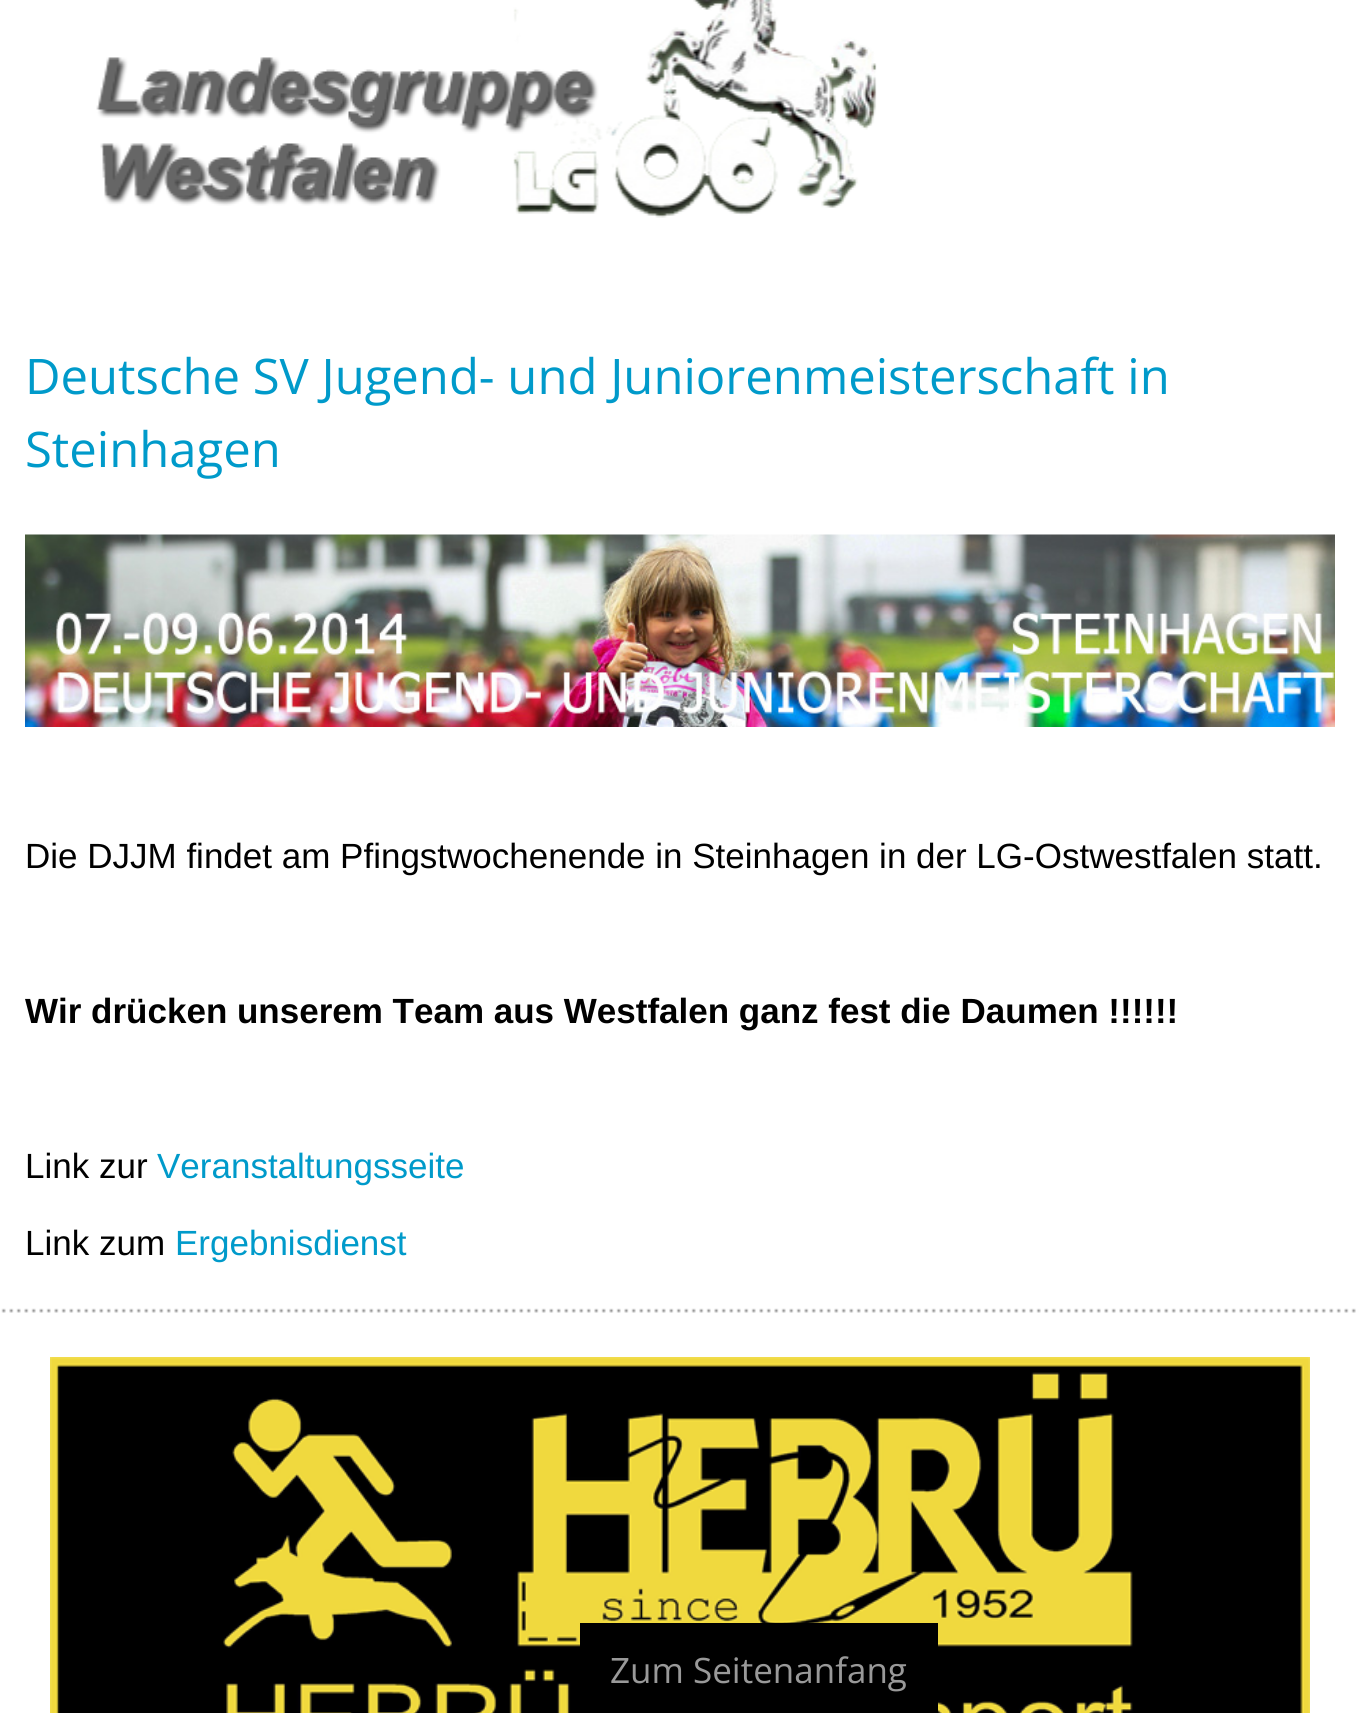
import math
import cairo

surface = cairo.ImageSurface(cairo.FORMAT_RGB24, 1358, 1713)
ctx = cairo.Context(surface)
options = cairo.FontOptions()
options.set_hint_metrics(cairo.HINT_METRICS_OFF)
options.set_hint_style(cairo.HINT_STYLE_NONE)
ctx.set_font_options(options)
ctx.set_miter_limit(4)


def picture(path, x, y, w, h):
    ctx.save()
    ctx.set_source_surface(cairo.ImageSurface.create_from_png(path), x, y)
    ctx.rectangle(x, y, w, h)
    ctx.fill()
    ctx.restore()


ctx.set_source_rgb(1, 1, 1)
ctx.paint()
picture("img1.png", 96, 0, 781, 218)
ctx.select_font_face("Open Sans")
ctx.set_font_size(49)
ctx.set_source_rgb(0, 0.604, 0.792)
ctx.move_to(25, 394)
ctx.show_text("Deutsche SV Jugend- und Juniorenmeisterschaft in")
ctx.move_to(25, 467)
ctx.show_text("Steinhagen")
picture("img2.png", 25, 534, 1310, 193)
ctx.select_font_face("Liberation Sans")
ctx.set_font_size(35)
ctx.set_source_rgb(0, 0, 0)
ctx.move_to(25, 868)
ctx.show_text("Die DJJM findet am Pfingstwochenende in Steinhagen in der LG-Ostwestfalen statt.")
ctx.select_font_face("Liberation Sans", cairo.FONT_SLANT_NORMAL, cairo.FONT_WEIGHT_BOLD)
ctx.move_to(25, 1023)
ctx.show_text("Wir drücken unserem Team aus Westfalen ganz fest die Daumen !!!!!!")
ctx.select_font_face("Liberation Sans")
ctx.move_to(25, 1178)
ctx.show_text("Link zur")
ctx.set_source_rgb(0, 0.604, 0.792)
ctx.move_to(157, 1178)
ctx.show_text("Veranstaltungsseite")
ctx.set_source_rgb(0, 0, 0)
ctx.move_to(25, 1255)
ctx.show_text("Link zum")
ctx.set_source_rgb(0, 0.604, 0.792)
ctx.move_to(175, 1255)
ctx.show_text("Ergebnisdienst")
picture("img3.png", 1, 1308, 1355, 5)
picture("img4.png", 50, 1357, 1260, 356)
ctx.set_source_rgb(0, 0, 0)
ctx.rectangle(580, 1623, 358, 90)
ctx.fill()
ctx.select_font_face("Open Sans")
ctx.set_source_rgb(0.6, 0.6, 0.6)
ctx.move_to(610, 1683)
ctx.show_text("Zum Seitenanfang")
surface.write_to_png("page.png")
